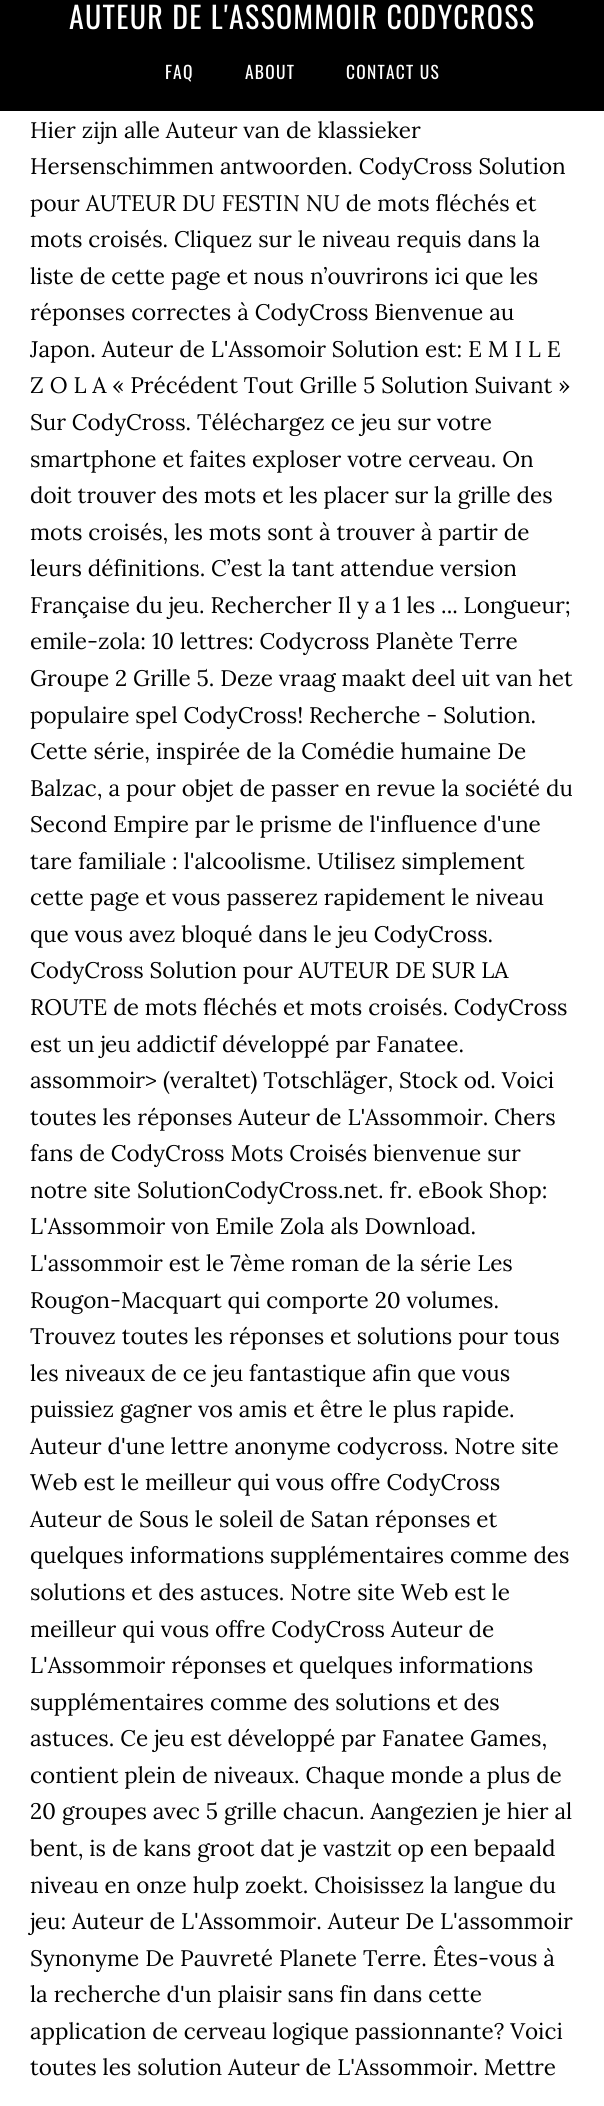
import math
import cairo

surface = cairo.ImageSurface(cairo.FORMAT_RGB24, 604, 2106)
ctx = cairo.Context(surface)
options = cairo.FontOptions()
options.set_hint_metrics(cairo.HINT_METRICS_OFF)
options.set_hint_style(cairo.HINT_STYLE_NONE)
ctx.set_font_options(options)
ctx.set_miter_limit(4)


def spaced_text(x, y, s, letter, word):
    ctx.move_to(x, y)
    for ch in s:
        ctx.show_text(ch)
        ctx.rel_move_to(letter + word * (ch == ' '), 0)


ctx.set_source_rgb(1, 1, 1)
ctx.paint()
ctx.set_source_rgb(0, 0, 0)
ctx.rectangle(0, 0, 604, 111)
ctx.fill()
ctx.select_font_face("Oswald")
ctx.set_font_size(30)
ctx.set_source_rgb(1, 1, 1)
spaced_text(69, 29, "AUTEUR DE L'ASSOMMOIR CODYCROSS", 1.25, 0)
ctx.set_font_size(17.5)
spaced_text(165, 79, "FAQ", 1.25, 0)
spaced_text(245, 79, "ABOUT", 1.25, 0)
spaced_text(346, 79, "CONTACT US", 1.25, 0)
ctx.select_font_face("Lora")
ctx.set_font_size(22.5)
ctx.set_source_rgb(0, 0, 0)
ctx.move_to(30, 138)
ctx.show_text("Hier zijn alle Auteur van de klassieker")
ctx.move_to(30, 174)
ctx.show_text("Hersenschimmen antwoorden. CodyCross Solution")
ctx.move_to(30, 211)
ctx.show_text("pour AUTEUR DU FESTIN NU de mots fléchés et")
ctx.move_to(30, 247)
ctx.show_text("mots croisés. Cliquez sur le niveau requis dans la")
ctx.move_to(30, 284)
ctx.show_text("liste de cette page et nous n’ouvrirons ici que les")
ctx.move_to(30, 320)
ctx.show_text("réponses correctes à CodyCross Bienvenue au")
ctx.move_to(30, 357)
ctx.show_text("Japon. Auteur de L'Assomoir Solution est: E M I L E")
ctx.move_to(30, 393)
ctx.show_text("Z O L A « Précédent Tout Grille 5 Solution Suivant »")
ctx.move_to(30, 430)
ctx.show_text("Sur CodyCross. Téléchargez ce jeu sur votre")
ctx.move_to(30, 467)
ctx.show_text("smartphone et faites exploser votre cerveau. On")
ctx.move_to(30, 503)
ctx.show_text("doit trouver des mots et les placer sur la grille des")
ctx.move_to(30, 540)
ctx.show_text("mots croisés, les mots sont à trouver à partir de")
ctx.move_to(30, 576)
ctx.show_text("leurs définitions. C’est la tant attendue version")
ctx.move_to(30, 613)
ctx.show_text("Française du jeu. Rechercher Il y a 1 les ... Longueur;")
ctx.move_to(30, 649)
ctx.show_text("emile-zola: 10 lettres: Codycross Planète Terre")
ctx.move_to(30, 686)
ctx.show_text("Groupe 2 Grille 5. Deze vraag maakt deel uit van het")
ctx.move_to(30, 723)
ctx.show_text("populaire spel CodyCross! Recherche - Solution.")
ctx.move_to(30, 759)
ctx.show_text("Cette série, inspirée de la Comédie humaine De")
ctx.move_to(30, 796)
ctx.show_text("Balzac, a pour objet de passer en revue la société du")
ctx.move_to(30, 832)
ctx.show_text("Second Empire par le prisme de l'influence d'une")
ctx.move_to(30, 869)
ctx.show_text("tare familiale : l'alcoolisme. Utilisez simplement")
ctx.move_to(30, 905)
ctx.show_text("cette page et vous passerez rapidement le niveau")
ctx.move_to(30, 942)
ctx.show_text("que vous avez bloqué dans le jeu CodyCross.")
ctx.move_to(30, 978)
ctx.show_text("CodyCross Solution pour AUTEUR DE SUR LA")
ctx.move_to(30, 1015)
ctx.show_text("ROUTE de mots fléchés et mots croisés. CodyCross")
ctx.move_to(30, 1052)
ctx.show_text("est un jeu addictif développé par Fanatee.")
ctx.move_to(30, 1088)
ctx.show_text("assommoir> (veraltet) Totschläger, Stock od. Voici")
ctx.move_to(30, 1125)
ctx.show_text("toutes les réponses Auteur de L'Assommoir. Chers")
ctx.move_to(30, 1161)
ctx.show_text("fans de CodyCross Mots Croisés bienvenue sur")
ctx.move_to(30, 1198)
ctx.show_text("notre site SolutionCodyCross.net. fr. eBook Shop:")
ctx.move_to(30, 1234)
ctx.show_text("L'Assommoir von Emile Zola als Download.")
ctx.move_to(30, 1271)
ctx.show_text("L'assommoir est le 7ème roman de la série Les")
ctx.move_to(30, 1308)
ctx.show_text("Rougon-Macquart qui comporte 20 volumes.")
ctx.move_to(30, 1344)
ctx.show_text("Trouvez toutes les réponses et solutions pour tous")
ctx.move_to(30, 1381)
ctx.show_text("les niveaux de ce jeu fantastique afin que vous")
ctx.move_to(30, 1417)
ctx.show_text("puissiez gagner vos amis et être le plus rapide.")
ctx.move_to(30, 1454)
ctx.show_text("Auteur d'une lettre anonyme codycross. Notre site")
ctx.move_to(30, 1490)
ctx.show_text("Web est le meilleur qui vous offre CodyCross")
ctx.move_to(30, 1527)
ctx.show_text("Auteur de Sous le soleil de Satan réponses et")
ctx.move_to(30, 1563)
ctx.show_text("quelques informations supplémentaires comme des")
ctx.move_to(30, 1600)
ctx.show_text("solutions et des astuces. Notre site Web est le")
ctx.move_to(30, 1637)
ctx.show_text("meilleur qui vous offre CodyCross Auteur de")
ctx.move_to(30, 1673)
ctx.show_text("L'Assommoir réponses et quelques informations")
ctx.move_to(30, 1710)
ctx.show_text("supplémentaires comme des solutions et des")
ctx.move_to(30, 1746)
ctx.show_text("astuces. Ce jeu est développé par Fanatee Games,")
ctx.move_to(30, 1783)
ctx.show_text("contient plein de niveaux. Chaque monde a plus de")
ctx.move_to(30, 1819)
ctx.show_text("20 groupes avec 5 grille chacun. Aangezien je hier al")
ctx.move_to(30, 1856)
ctx.show_text("bent, is de kans groot dat je vastzit op een bepaald")
ctx.move_to(30, 1893)
ctx.show_text("niveau en onze hulp zoekt. Choisissez la langue du")
ctx.move_to(30, 1929)
ctx.show_text("jeu: Auteur de L'Assommoir. Auteur De L'assommoir")
ctx.move_to(30, 1966)
ctx.show_text("Synonyme De Pauvreté Planete Terre. Êtes-vous à")
ctx.move_to(30, 2002)
ctx.show_text("la recherche d'un plaisir sans fin dans cette")
ctx.move_to(30, 2039)
ctx.show_text("application de cerveau logique passionnante? Voici")
ctx.move_to(30, 2075)
ctx.show_text("toutes les solution Auteur de L'Assommoir. Mettre")
surface.write_to_png("page.png")
